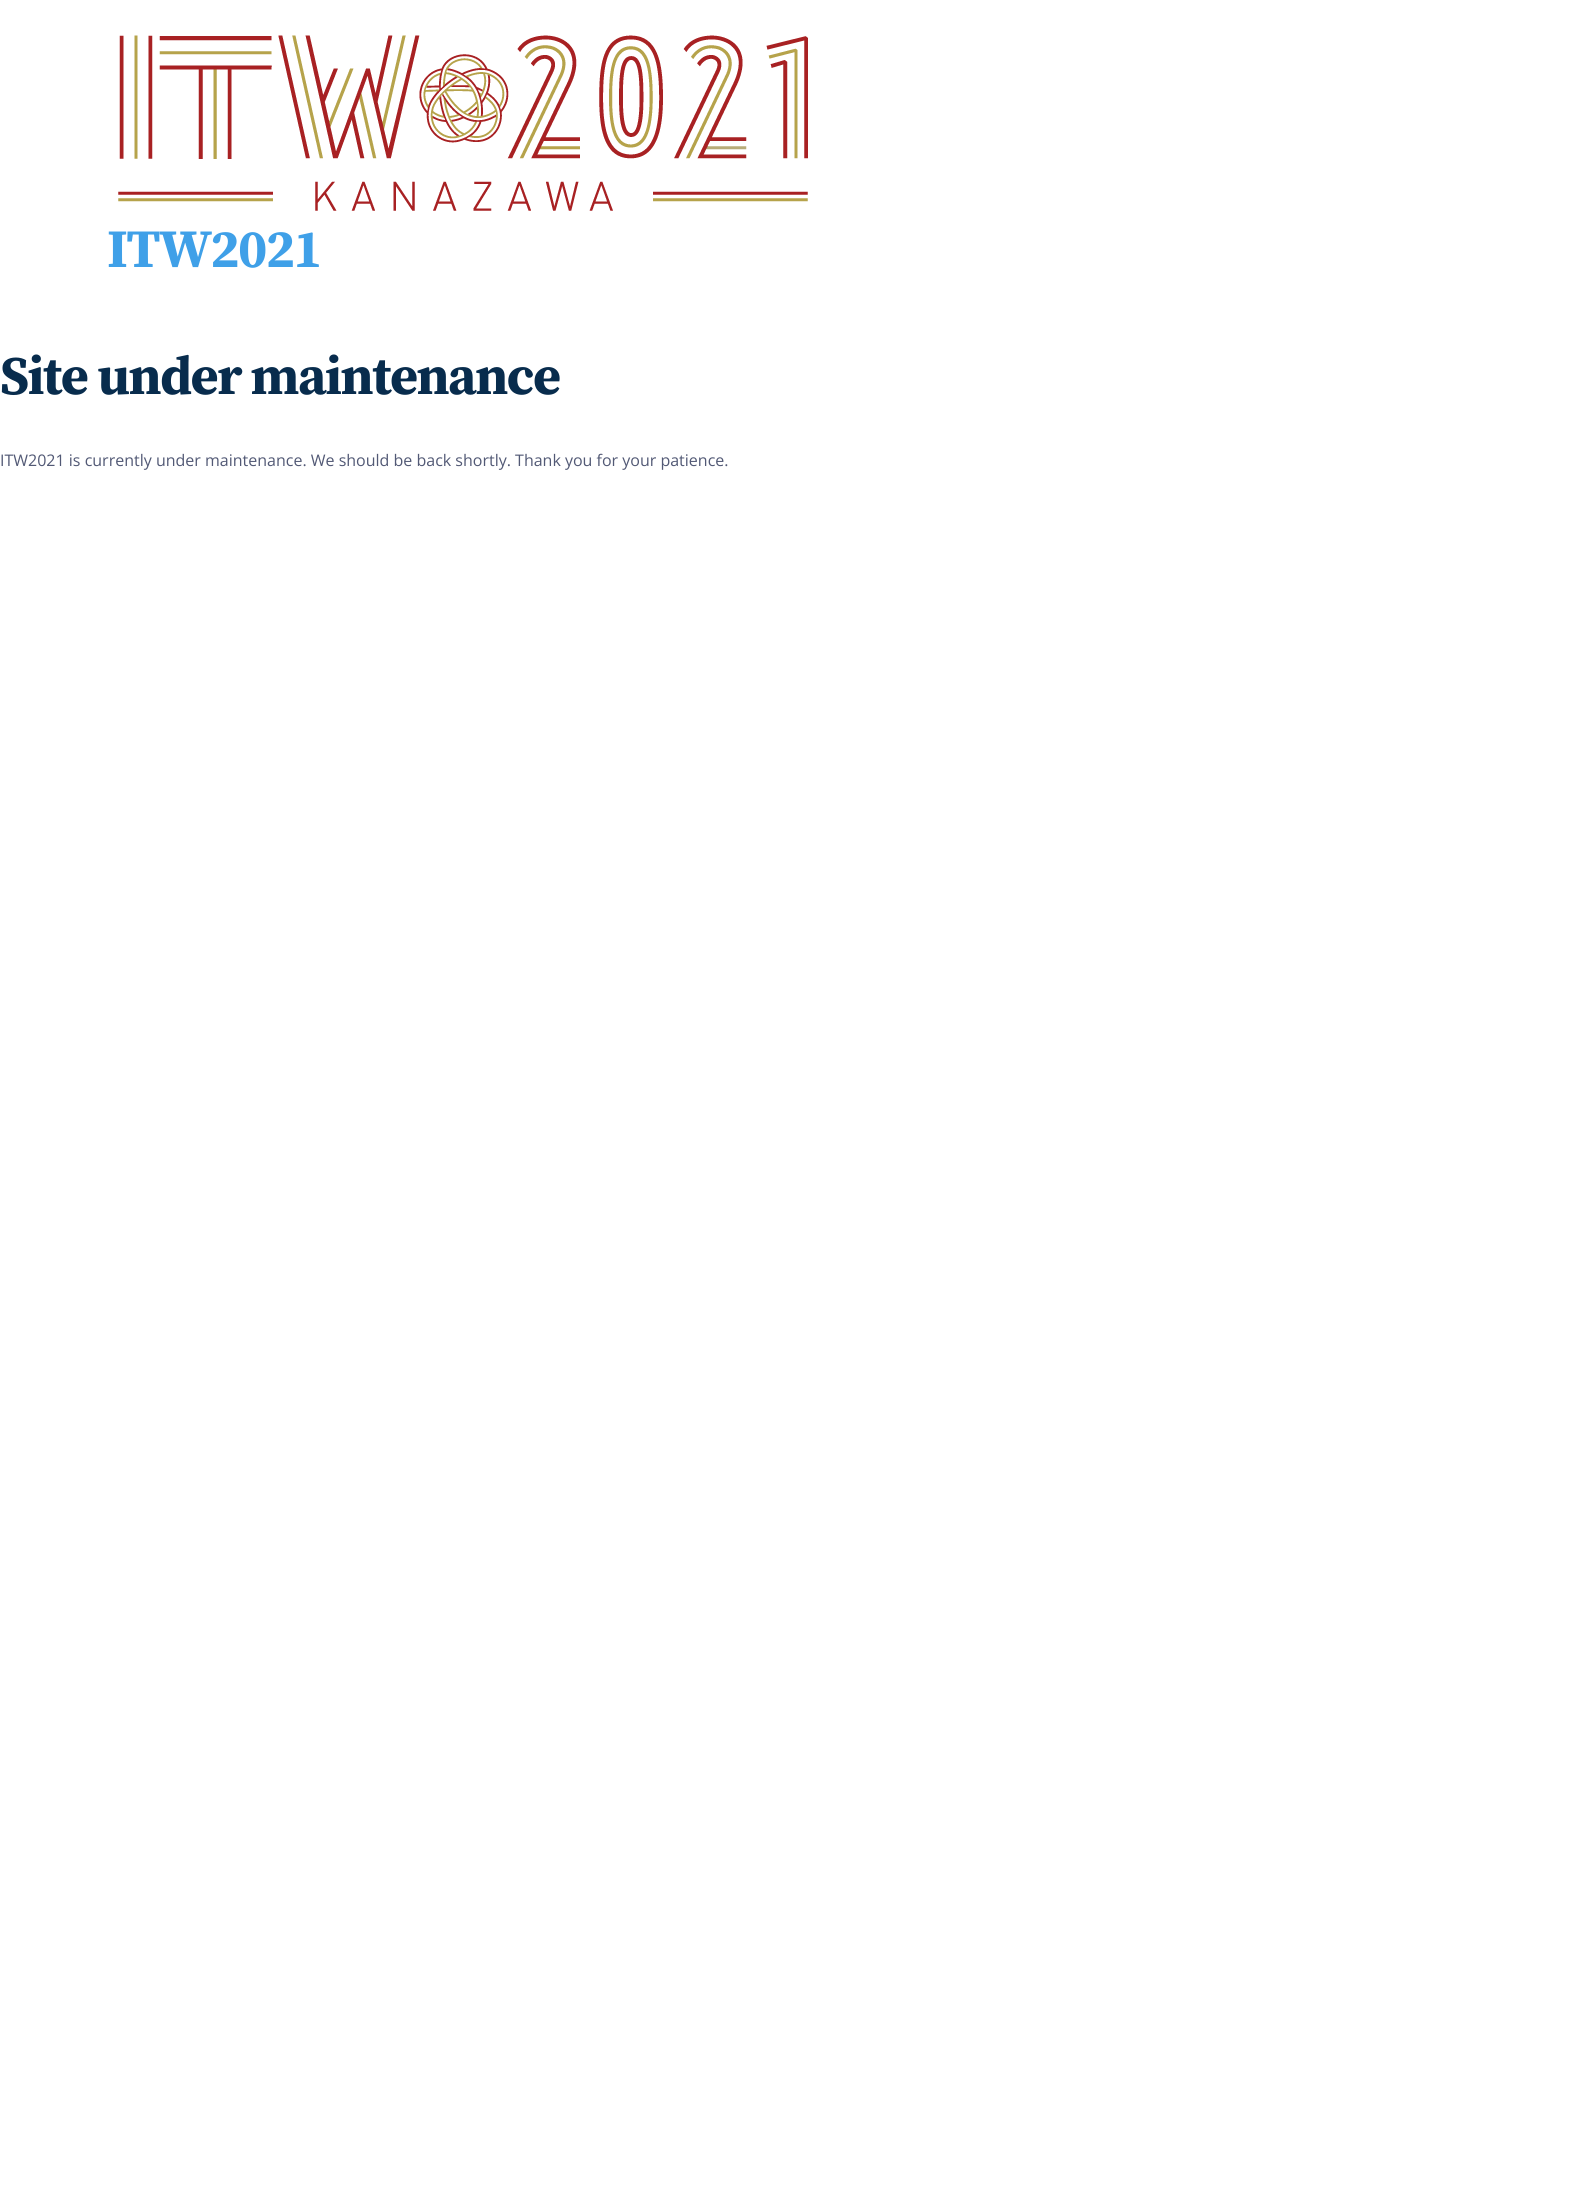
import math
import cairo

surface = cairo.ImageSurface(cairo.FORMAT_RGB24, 1578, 2195)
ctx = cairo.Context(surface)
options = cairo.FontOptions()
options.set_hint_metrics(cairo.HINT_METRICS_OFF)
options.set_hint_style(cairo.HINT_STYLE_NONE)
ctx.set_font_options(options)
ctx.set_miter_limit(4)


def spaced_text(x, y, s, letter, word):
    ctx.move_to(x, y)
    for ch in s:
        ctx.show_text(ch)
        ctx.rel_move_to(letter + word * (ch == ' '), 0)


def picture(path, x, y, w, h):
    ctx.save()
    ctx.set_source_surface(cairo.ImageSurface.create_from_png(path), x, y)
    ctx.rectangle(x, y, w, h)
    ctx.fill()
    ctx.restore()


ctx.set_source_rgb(1, 1, 1)
ctx.paint()
picture("img1.png", 118, 35, 690, 176)
ctx.select_font_face("Source Serif Pro", cairo.FONT_SLANT_NORMAL, cairo.FONT_WEIGHT_BOLD)
ctx.set_font_size(54)
ctx.set_source_rgb(0.247, 0.627, 0.91)
spaced_text(107, 267, "ITW2021", -1.6, 0)
ctx.set_source_rgb(0.035, 0.173, 0.302)
spaced_text(0, 394, "Site under maintenance", -1.6, 0)
ctx.select_font_face("Open Sans")
ctx.set_font_size(16)
ctx.set_source_rgb(0.322, 0.349, 0.459)
ctx.move_to(0, 466)
ctx.show_text("ITW2021 is currently under maintenance. We should be back shortly. Thank you for your patience.")
surface.write_to_png("page.png")
